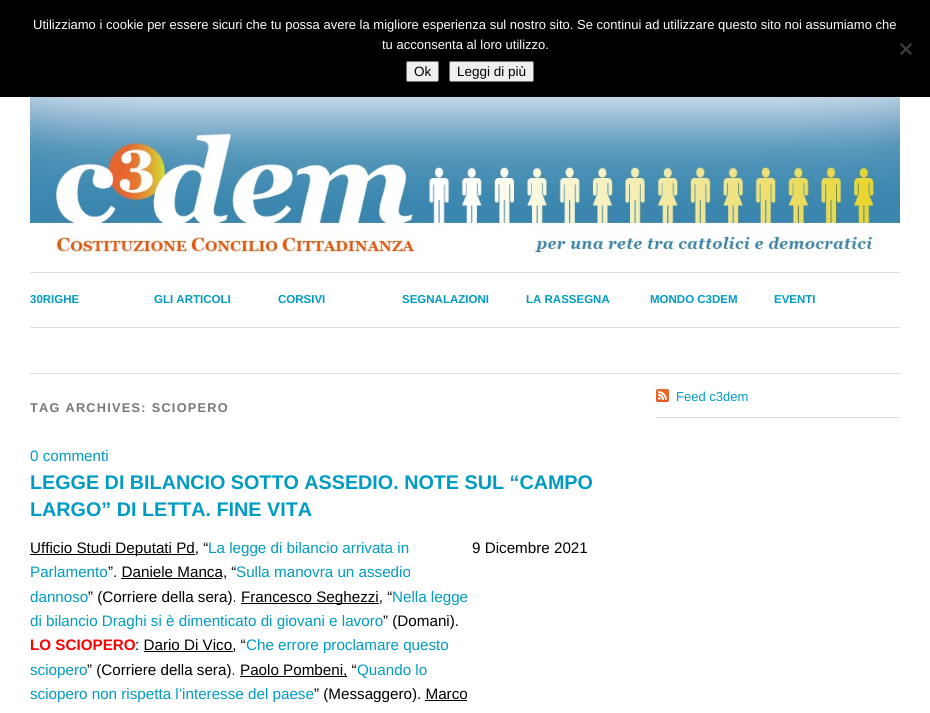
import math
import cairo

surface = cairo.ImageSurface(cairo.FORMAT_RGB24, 930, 713)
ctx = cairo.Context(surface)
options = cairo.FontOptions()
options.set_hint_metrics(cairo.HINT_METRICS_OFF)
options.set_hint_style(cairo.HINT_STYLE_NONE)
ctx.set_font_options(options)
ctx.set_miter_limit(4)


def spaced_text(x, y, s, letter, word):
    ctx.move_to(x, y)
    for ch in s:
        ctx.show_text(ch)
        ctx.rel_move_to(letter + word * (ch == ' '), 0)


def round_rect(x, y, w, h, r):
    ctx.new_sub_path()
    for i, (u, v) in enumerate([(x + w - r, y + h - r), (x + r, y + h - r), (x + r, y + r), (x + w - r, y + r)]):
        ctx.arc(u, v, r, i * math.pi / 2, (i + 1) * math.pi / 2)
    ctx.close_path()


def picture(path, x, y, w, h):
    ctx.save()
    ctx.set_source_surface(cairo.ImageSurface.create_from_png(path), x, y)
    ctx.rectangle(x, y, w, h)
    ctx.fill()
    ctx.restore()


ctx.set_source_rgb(1, 1, 1)
ctx.paint()
ctx.set_source_rgb(0, 0, 0)
ctx.rectangle(0, 0, 930, 97)
ctx.fill()
ctx.select_font_face("Liberation Sans")
ctx.set_font_size(13)
ctx.set_source_rgb(1, 1, 1)
ctx.move_to(33, 29)
ctx.show_text("Utilizziamo i cookie per essere sicuri che tu possa avere la migliore esperienza sul nostro sito. Se continui ad utilizzare questo sito noi assumiamo che")
ctx.move_to(382, 49)
ctx.show_text("tu acconsenta al loro utilizzo.")
ctx.set_source_rgb(0.251, 0.251, 0.251)
ctx.new_path()
ctx.move_to(910.5, 43)
ctx.line_to(912, 44.5)
ctx.line_to(901.5, 55)
ctx.line_to(900, 53.5)
ctx.close_path()
ctx.fill()
ctx.new_path()
ctx.move_to(900, 44.5)
ctx.line_to(901.5, 43)
ctx.line_to(912, 53.5)
ctx.line_to(910.5, 55)
ctx.close_path()
ctx.fill()
ctx.set_source_rgb(0.937, 0.937, 0.937)
round_rect(406.5, 61.5, 32, 20, 1.5)
ctx.fill_preserve()
ctx.set_source_rgb(0.463, 0.463, 0.463)
ctx.set_line_width(1)
ctx.stroke()
ctx.set_font_size(13.5)
ctx.set_source_rgb(0, 0, 0)
ctx.move_to(414, 76)
ctx.show_text("Ok")
ctx.set_source_rgb(0.937, 0.937, 0.937)
round_rect(449.5, 61.5, 84, 20, 1.5)
ctx.fill_preserve()
ctx.set_source_rgb(0.463, 0.463, 0.463)
ctx.stroke()
ctx.set_source_rgb(0, 0, 0)
ctx.move_to(457, 76)
ctx.show_text("Leggi di più")
picture("img1.png", 30, 97, 870, 158)
ctx.set_source_rgb(0.867, 0.867, 0.867)
ctx.rectangle(30, 272, 870, 1)
ctx.fill()
ctx.select_font_face("Liberation Sans", cairo.FONT_SLANT_NORMAL, cairo.FONT_WEIGHT_BOLD)
ctx.set_font_size(11.5)
ctx.set_source_rgb(0, 0.608, 0.761)
ctx.move_to(30, 303)
ctx.show_text("30RIGHE")
ctx.move_to(154, 303)
ctx.show_text("GLI ARTICOLI")
ctx.move_to(278, 303)
ctx.show_text("CORSIVI")
ctx.move_to(402, 303)
ctx.show_text("SEGNALAZIONI")
ctx.move_to(526, 303)
ctx.show_text("LA RASSEGNA")
ctx.move_to(650, 303)
ctx.show_text("MONDO C3DEM")
ctx.move_to(774, 303)
ctx.show_text("EVENTI")
ctx.set_source_rgb(0.867, 0.867, 0.867)
ctx.rectangle(30, 327, 870, 1)
ctx.fill()
ctx.rectangle(30, 373, 870, 1)
ctx.fill()
ctx.rectangle(656, 417, 244, 1)
ctx.fill()
picture("img2.png", 656, 389, 13, 13)
ctx.select_font_face("Liberation Sans")
ctx.set_font_size(13)
ctx.set_source_rgb(0, 0.608, 0.761)
ctx.move_to(676, 401)
ctx.show_text("Feed c3dem")
ctx.select_font_face("Liberation Sans", cairo.FONT_SLANT_NORMAL, cairo.FONT_WEIGHT_BOLD)
ctx.set_font_size(12.75)
ctx.set_source_rgb(0.467, 0.467, 0.467)
spaced_text(30, 412, "TAG ARCHIVES: SCIOPERO", 1.25, 0)
ctx.select_font_face("Liberation Sans")
ctx.set_font_size(15.2)
ctx.set_source_rgb(0, 0.608, 0.761)
ctx.move_to(30, 461)
ctx.show_text("0 commenti")
ctx.select_font_face("Liberation Sans", cairo.FONT_SLANT_NORMAL, cairo.FONT_WEIGHT_BOLD)
ctx.set_font_size(19.75)
ctx.move_to(30, 489)
ctx.show_text("LEGGE DI BILANCIO SOTTO ASSEDIO. NOTE SUL “CAMPO")
ctx.move_to(30, 516)
ctx.show_text("LARGO” DI LETTA. FINE VITA")
ctx.set_source_rgb(0, 0, 0)
ctx.rectangle(30, 554, 165, 1)
ctx.fill()
ctx.select_font_face("Liberation Sans")
ctx.set_font_size(15.2)
ctx.move_to(30, 553)
ctx.show_text("Ufficio Studi Deputati Pd, “")
ctx.set_source_rgb(0, 0.608, 0.761)
ctx.move_to(208, 553)
ctx.show_text("La legge di bilancio arrivata in")
ctx.move_to(30, 577)
ctx.show_text("Parlamento")
ctx.set_source_rgb(0, 0, 0)
ctx.move_to(108, 577)
ctx.show_text("”. Daniele Manca, “")
ctx.set_source_rgb(0, 0.608, 0.761)
ctx.move_to(236, 577)
ctx.show_text("Sulla manovra un assedio")
ctx.set_source_rgb(0, 0, 0)
ctx.rectangle(121, 578, 101, 1)
ctx.fill()
ctx.set_source_rgb(0, 0.608, 0.761)
ctx.move_to(30, 602)
ctx.show_text("dannoso")
ctx.set_source_rgb(0, 0, 0)
ctx.move_to(88, 602)
ctx.show_text("” (Corriere della sera).")
ctx.rectangle(241, 603, 138, 1)
ctx.fill()
ctx.move_to(241, 602)
ctx.show_text("Francesco Seghezzi, “")
ctx.set_source_rgb(0, 0.608, 0.761)
ctx.move_to(392, 602)
ctx.show_text("Nella legge")
ctx.move_to(30, 626)
ctx.show_text("di bilancio Draghi si è dimenticato di giovani e lavoro")
ctx.set_source_rgb(0, 0, 0)
ctx.move_to(383, 626)
ctx.show_text("” (Domani).")
ctx.select_font_face("Liberation Sans", cairo.FONT_SLANT_NORMAL, cairo.FONT_WEIGHT_BOLD)
ctx.set_source_rgb(1, 0, 0)
ctx.move_to(30, 650)
ctx.show_text("LO SCIOPERO")
ctx.select_font_face("Liberation Sans")
ctx.set_source_rgb(0, 0, 0)
ctx.move_to(135, 650)
ctx.show_text(": Dario Di Vico, “")
ctx.set_source_rgb(0, 0.608, 0.761)
ctx.move_to(246, 650)
ctx.show_text("Che errore proclamare questo")
ctx.set_source_rgb(0, 0, 0)
ctx.rectangle(144, 651, 89, 1)
ctx.fill()
ctx.set_source_rgb(0, 0.608, 0.761)
ctx.move_to(30, 675)
ctx.show_text("sciopero")
ctx.set_source_rgb(0, 0, 0)
ctx.move_to(87, 675)
ctx.show_text("” (Corriere della sera).")
ctx.rectangle(240, 676, 107, 1)
ctx.fill()
ctx.move_to(240, 675)
ctx.show_text("Paolo Pombeni, “")
ctx.set_source_rgb(0, 0.608, 0.761)
ctx.move_to(357, 675)
ctx.show_text("Quando lo")
ctx.move_to(30, 699)
ctx.show_text("sciopero non rispetta l’interesse del paese")
ctx.set_source_rgb(0, 0, 0)
ctx.move_to(314, 699)
ctx.show_text("” (Messaggero). Marco")
ctx.rectangle(425, 700, 42, 1)
ctx.fill()
ctx.move_to(472, 553)
ctx.show_text("9 Dicembre 2021")
surface.write_to_png("page.png")
